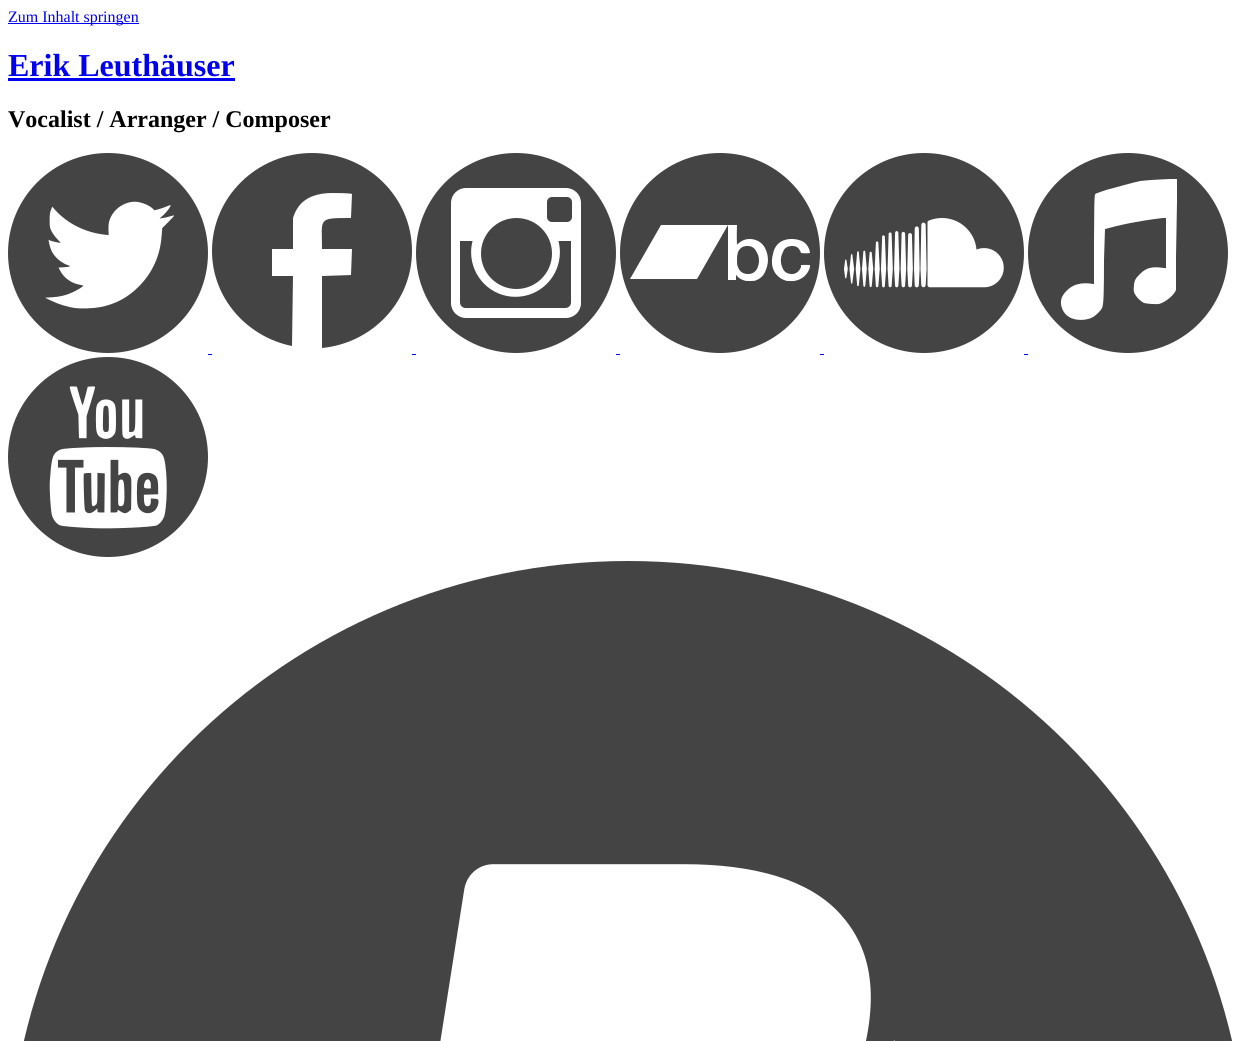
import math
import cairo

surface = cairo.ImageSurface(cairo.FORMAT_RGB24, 1256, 1041)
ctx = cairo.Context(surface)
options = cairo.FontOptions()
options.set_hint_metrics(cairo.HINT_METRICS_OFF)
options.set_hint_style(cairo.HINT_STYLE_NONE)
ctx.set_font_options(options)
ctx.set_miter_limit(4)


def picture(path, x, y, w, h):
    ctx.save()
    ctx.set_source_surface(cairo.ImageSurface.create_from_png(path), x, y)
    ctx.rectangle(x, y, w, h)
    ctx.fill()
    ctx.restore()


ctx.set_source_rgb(1, 1, 1)
ctx.paint()
ctx.set_source_rgb(0, 0, 0.933)
ctx.rectangle(8, 23, 131, 1)
ctx.fill()
ctx.select_font_face("Liberation Serif")
ctx.set_font_size(16)
ctx.move_to(8, 22)
ctx.show_text("Zum Inhalt springen")
ctx.select_font_face("Liberation Serif", cairo.FONT_SLANT_NORMAL, cairo.FONT_WEIGHT_BOLD)
ctx.set_font_size(32)
ctx.move_to(8, 76)
ctx.show_text("Erik Leuthäuser")
ctx.rectangle(8, 78, 227, 3)
ctx.fill()
ctx.set_font_size(24)
ctx.set_source_rgb(0, 0, 0)
ctx.move_to(8, 127)
ctx.show_text("Vocalist / Arranger / Composer")
picture("img1.png", 8, 153, 200, 200)
ctx.set_source_rgb(0.267, 0.267, 0.267)
ctx.set_fill_rule(cairo.FILL_RULE_EVEN_ODD)
ctx.new_path()
ctx.move_to(312, 153)
ctx.curve_to(367, 153, 412, 197, 412, 251)
ctx.curve_to(412, 301, 373, 343, 322, 348)
ctx.line_to(322, 276)
ctx.line_to(351, 275)
ctx.line_to(352, 249)
ctx.line_to(322, 249)
ctx.curve_to(322, 218, 317, 218, 351, 218)
ctx.line_to(352, 194)
ctx.curve_to(350, 193, 334, 193, 332, 193)
ctx.curve_to(318, 193, 304, 197, 297, 209)
ctx.curve_to(295, 212, 294, 215, 293, 218)
ctx.line_to(293, 249)
ctx.line_to(272, 249)
ctx.line_to(272, 276)
ctx.line_to(293, 276)
ctx.line_to(292, 346)
ctx.curve_to(247, 337, 212, 298, 212, 251)
ctx.curve_to(212, 197, 257, 153, 312, 153)
ctx.close_path()
ctx.fill()
picture("img2.png", 416, 153, 200, 200)
picture("img3.png", 620, 153, 200, 200)
picture("img4.png", 824, 153, 200, 200)
picture("img5.png", 1028, 153, 200, 200)
ctx.set_source_rgb(0, 0, 0.933)
ctx.rectangle(208, 354, 4, 1)
ctx.fill()
ctx.rectangle(412, 354, 4, 1)
ctx.fill()
ctx.rectangle(616, 354, 4, 1)
ctx.fill()
ctx.rectangle(820, 354, 4, 1)
ctx.fill()
ctx.rectangle(1024, 354, 4, 1)
ctx.fill()
picture("img6.png", 8, 357, 200, 200)
picture("img7.png", 23, 561, 1209, 480)
surface.write_to_png("page.png")
